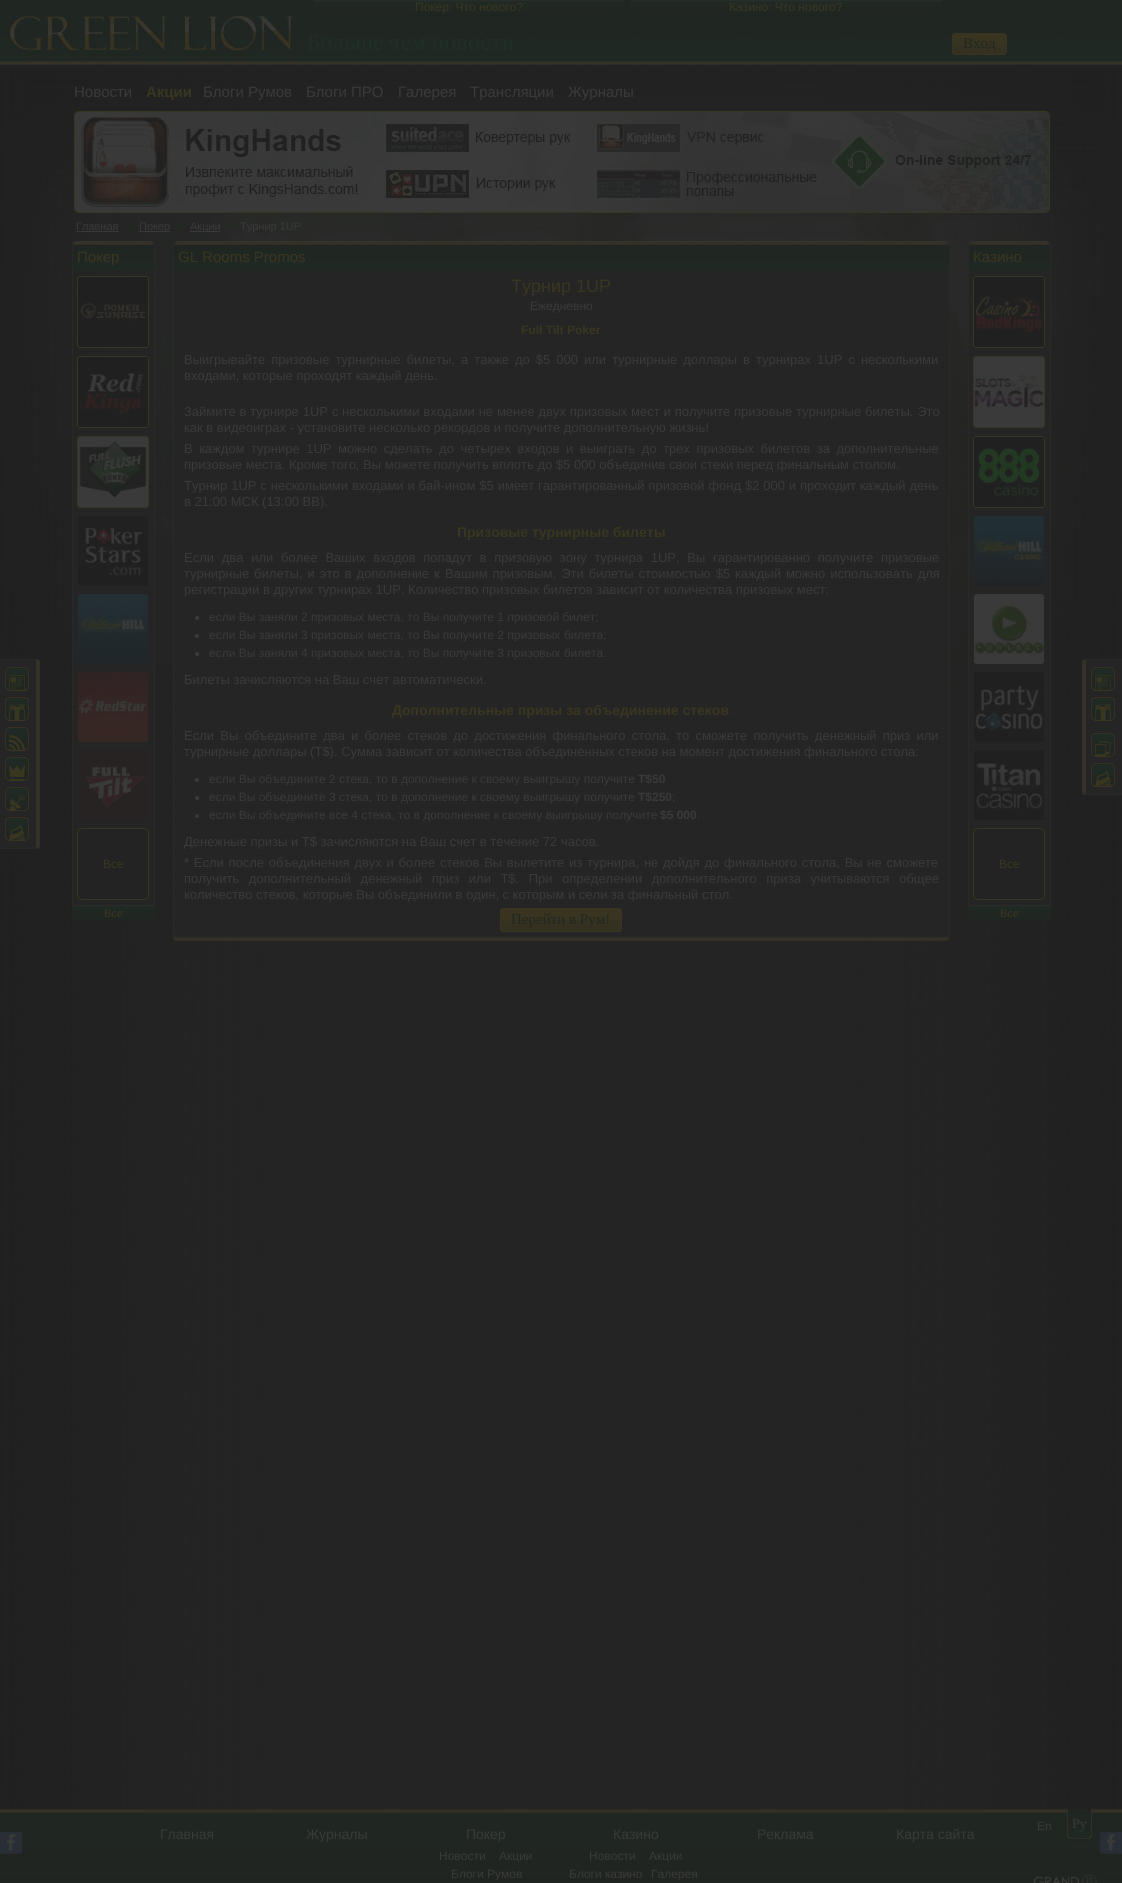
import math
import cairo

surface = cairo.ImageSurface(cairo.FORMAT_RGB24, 1122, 1883)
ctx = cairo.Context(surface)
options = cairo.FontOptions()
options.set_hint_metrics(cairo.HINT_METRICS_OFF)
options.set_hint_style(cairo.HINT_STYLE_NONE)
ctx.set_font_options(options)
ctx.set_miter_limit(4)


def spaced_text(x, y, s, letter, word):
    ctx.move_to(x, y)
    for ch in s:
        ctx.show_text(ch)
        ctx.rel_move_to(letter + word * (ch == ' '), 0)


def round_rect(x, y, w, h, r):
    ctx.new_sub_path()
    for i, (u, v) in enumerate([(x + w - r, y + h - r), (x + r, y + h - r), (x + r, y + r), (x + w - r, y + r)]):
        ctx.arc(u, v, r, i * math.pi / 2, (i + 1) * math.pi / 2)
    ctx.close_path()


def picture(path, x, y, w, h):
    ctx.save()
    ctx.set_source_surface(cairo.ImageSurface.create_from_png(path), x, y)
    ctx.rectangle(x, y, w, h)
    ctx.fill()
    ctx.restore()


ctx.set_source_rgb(0.137, 0.141, 0.137)
ctx.paint()
picture("img1.png", 0, 0, 1122, 65)
picture("img2.png", 314, 0, 8, 16)
picture("img3.png", 616, 0, 8, 16)
picture("img4.png", 314, 0, 310, 16)
ctx.select_font_face("Liberation Sans")
ctx.set_font_size(12)
ctx.set_source_rgb(0.224, 0.212, 0.125)
ctx.move_to(415, 11)
ctx.show_text("Покер: Что нового?")
picture("img5.png", 631, 0, 8, 16)
picture("img3.png", 933, 0, 8, 16)
picture("img4.png", 631, 0, 310, 16)
ctx.move_to(729, 11)
ctx.show_text("Казино: Что нового?")
picture("img6.png", 8, 16, 506, 43)
picture("img7.png", 952, 34, 55, 21)
round_rect(952.5, 33.5, 54, 21, 3.5)
ctx.set_source_rgb(0.22, 0.212, 0.133)
ctx.set_line_width(1)
ctx.stroke()
ctx.select_font_face("Liberation Serif")
ctx.set_font_size(15)
ctx.set_source_rgb(0.125, 0.153, 0.133)
ctx.move_to(963, 48)
ctx.show_text("Вход")
picture("img8.png", 0, 78, 1122, 714)
picture("img9.png", 0, 65, 273, 1744)
picture("img10.png", 847, 65, 275, 1744)
picture("img11.png", 25, 65, 1076, 172)
ctx.select_font_face("Liberation Sans")
ctx.set_source_rgb(0.224, 0.227, 0.224)
ctx.move_to(74, 97)
ctx.show_text("Новости")
ctx.select_font_face("Liberation Sans", cairo.FONT_SLANT_NORMAL, cairo.FONT_WEIGHT_BOLD)
ctx.set_source_rgb(0.224, 0.212, 0.125)
ctx.move_to(146, 97)
ctx.show_text("Акции")
ctx.select_font_face("Liberation Sans")
ctx.set_source_rgb(0.224, 0.227, 0.224)
ctx.move_to(203, 97)
ctx.show_text("Блоги Румов")
ctx.move_to(306, 97)
ctx.show_text("Блоги ПРО")
ctx.move_to(398, 97)
ctx.show_text("Галерея")
ctx.move_to(470, 97)
ctx.show_text("Трансляции")
ctx.move_to(568, 97)
ctx.show_text("Журналы")
round_rect(74.5, 111.5, 975, 101, 4.5)
ctx.set_source_rgb(0.224, 0.212, 0.125)
ctx.stroke()
picture("img12.png", 75, 112, 4, 100)
picture("img13.png", 75, 112, 974, 100)
ctx.set_font_size(11)
ctx.set_source_rgb(0.224, 0.227, 0.224)
ctx.move_to(76, 230)
ctx.show_text("Главная")
ctx.rectangle(76, 231, 43, 1)
ctx.fill()
picture("img14.png", 125, 222, 8, 8)
ctx.rectangle(139, 231, 31, 1)
ctx.fill()
ctx.move_to(139, 230)
ctx.show_text("Покер")
picture("img15.png", 176, 222, 8, 8)
ctx.rectangle(190, 231, 30, 1)
ctx.fill()
ctx.move_to(190, 230)
ctx.show_text("Акции")
picture("img16.png", 226, 222, 8, 8)
ctx.move_to(240, 230)
ctx.show_text("Турнир 1UP")
picture("img17.png", 72, 241, 5, 30)
picture("img18.png", 150, 241, 5, 30)
picture("img19.png", 77, 241, 73, 30)
ctx.set_font_size(15)
ctx.set_source_rgb(0.224, 0.212, 0.125)
ctx.move_to(77, 262)
ctx.show_text("Покер")
ctx.set_source_rgb(0.157, 0.161, 0.157)
ctx.rectangle(72, 271, 1, 634)
ctx.fill()
ctx.rectangle(154, 271, 1, 634)
ctx.fill()
ctx.set_source_rgb(0.145, 0.149, 0.145)
ctx.rectangle(73, 370, 81, 535)
ctx.fill()
picture("img20.png", 73, 271, 81, 633)
round_rect(77.5, 276.5, 71, 71, 2.5)
ctx.set_source_rgb(0.224, 0.212, 0.125)
ctx.stroke()
picture("img21.png", 78, 277, 70, 70)
round_rect(77.5, 356.5, 71, 71, 2.5)
ctx.stroke()
picture("img22.png", 78, 357, 70, 70)
round_rect(77.5, 436.5, 71, 71, 2.5)
ctx.stroke()
picture("img23.png", 78, 437, 70, 70)
picture("img24.png", 78, 516, 70, 70)
picture("img25.png", 78, 594, 70, 70)
picture("img26.png", 78, 672, 70, 70)
picture("img27.png", 78, 750, 70, 70)
picture("img28.png", 77, 828, 72, 72)
round_rect(77.5, 828.5, 71, 71, 4.5)
ctx.stroke()
ctx.set_font_size(12)
ctx.move_to(103, 868)
ctx.show_text("Все")
picture("img29.png", 147, 905, 8, 16)
picture("img30.png", 72, 905, 8, 16)
picture("img31.png", 80, 905, 67, 16)
ctx.set_font_size(11)
ctx.move_to(104, 917)
ctx.show_text("Все")
picture("img32.png", 173, 241, 5, 30)
picture("img33.png", 945, 241, 5, 30)
picture("img34.png", 178, 241, 767, 30)
ctx.set_font_size(15)
ctx.move_to(178, 262)
ctx.show_text("GL Rooms Promos")
ctx.set_source_rgb(0.157, 0.161, 0.157)
ctx.rectangle(173, 271, 1, 666)
ctx.fill()
ctx.rectangle(949, 329, 1, 608)
ctx.fill()
ctx.set_source_rgb(0.145, 0.149, 0.145)
ctx.rectangle(174, 271, 775, 666)
ctx.fill()
picture("img35.png", 174, 271, 775, 665)
ctx.set_source_rgb(0.208, 0.196, 0.157)
ctx.rectangle(36, 659, 3, 190)
ctx.fill()
ctx.set_source_rgb(0.157, 0.161, 0.157)
ctx.new_path()
ctx.move_to(0, 659)
ctx.line_to(0, 660)
ctx.line_to(37, 660)
ctx.line_to(38.5, 660.5)
ctx.line_to(39, 660)
ctx.curve_to(39, 659, 38, 659, 37, 659)
ctx.close_path()
ctx.fill()
ctx.set_source_rgb(0.18, 0.184, 0.18)
ctx.new_path()
ctx.move_to(38, 847)
ctx.line_to(39, 846)
ctx.line_to(39, 662)
ctx.line_to(38, 661)
ctx.line_to(39, 660)
ctx.line_to(40, 662)
ctx.line_to(40, 846)
ctx.line_to(39, 848)
ctx.close_path()
ctx.fill()
ctx.set_source_rgb(0.157, 0.161, 0.157)
ctx.new_path()
ctx.move_to(0, 848)
ctx.line_to(0, 849)
ctx.line_to(37, 849)
ctx.curve_to(38, 849, 39, 849, 39, 848)
ctx.line_to(38.5, 847.5)
ctx.line_to(37, 848)
ctx.close_path()
ctx.fill()
ctx.set_source_rgb(0.145, 0.149, 0.145)
ctx.rectangle(0, 660, 36, 188)
ctx.fill()
picture("img36.png", 0, 660, 36, 187)
ctx.save()
round_rect(5, 667, 24, 24, 5)
ctx.clip()
gradient = cairo.LinearGradient(17, 668, 17, 690)
gradient.add_color_stop_rgba(0, 0.125, 0.165, 0.141, 1)
gradient.add_color_stop_rgba(1, 0.125, 0.145, 0.129, 1)
ctx.set_source(gradient)
ctx.rectangle(5, 668, 24, 22)
ctx.fill()
ctx.restore()
round_rect(5.5, 667.5, 23, 23, 4.5)
ctx.set_source_rgb(0.216, 0.192, 0.141)
ctx.stroke()
picture("img37.png", 9, 675, 16, 16)
ctx.save()
round_rect(5, 697, 24, 24, 5)
ctx.clip()
gradient = cairo.LinearGradient(17, 698, 17, 720)
gradient.add_color_stop_rgba(0, 0.125, 0.165, 0.141, 1)
gradient.add_color_stop_rgba(1, 0.125, 0.145, 0.129, 1)
ctx.set_source(gradient)
ctx.rectangle(5, 698, 24, 22)
ctx.fill()
ctx.restore()
round_rect(5.5, 697.5, 23, 23, 4.5)
ctx.stroke()
picture("img38.png", 9, 704, 16, 17)
ctx.save()
round_rect(5, 727, 24, 24, 5)
ctx.clip()
gradient = cairo.LinearGradient(17, 728, 17, 750)
gradient.add_color_stop_rgba(0, 0.125, 0.165, 0.141, 1)
gradient.add_color_stop_rgba(1, 0.125, 0.145, 0.129, 1)
ctx.set_source(gradient)
ctx.rectangle(5, 728, 24, 22)
ctx.fill()
ctx.restore()
round_rect(5.5, 727.5, 23, 23, 4.5)
ctx.stroke()
picture("img39.png", 9, 735, 16, 16)
ctx.save()
round_rect(5, 757, 24, 24, 5)
ctx.clip()
gradient = cairo.LinearGradient(17, 758, 17, 780)
gradient.add_color_stop_rgba(0, 0.125, 0.165, 0.141, 1)
gradient.add_color_stop_rgba(1, 0.125, 0.145, 0.129, 1)
ctx.set_source(gradient)
ctx.rectangle(5, 758, 24, 22)
ctx.fill()
ctx.restore()
round_rect(5.5, 757.5, 23, 23, 4.5)
ctx.stroke()
picture("img40.png", 9, 765, 16, 16)
ctx.save()
round_rect(5, 787, 24, 24, 5)
ctx.clip()
gradient = cairo.LinearGradient(17, 788, 17, 810)
gradient.add_color_stop_rgba(0, 0.125, 0.165, 0.141, 1)
gradient.add_color_stop_rgba(1, 0.125, 0.145, 0.129, 1)
ctx.set_source(gradient)
ctx.rectangle(5, 788, 24, 22)
ctx.fill()
ctx.restore()
round_rect(5.5, 787.5, 23, 23, 4.5)
ctx.stroke()
picture("img41.png", 9, 795, 16, 16)
ctx.save()
round_rect(5, 817, 24, 24, 5)
ctx.clip()
gradient = cairo.LinearGradient(17, 818, 17, 840)
gradient.add_color_stop_rgba(0, 0.125, 0.165, 0.141, 1)
gradient.add_color_stop_rgba(1, 0.125, 0.145, 0.129, 1)
ctx.set_source(gradient)
ctx.rectangle(5, 818, 24, 22)
ctx.fill()
ctx.restore()
round_rect(5.5, 817.5, 23, 23, 4.5)
ctx.stroke()
picture("img42.png", 9, 825, 16, 16)
ctx.set_font_size(18)
ctx.set_source_rgb(0.224, 0.212, 0.125)
ctx.move_to(511, 292)
ctx.show_text("Турнир 1UP")
ctx.set_font_size(12)
ctx.set_source_rgb(0.224, 0.227, 0.224)
ctx.move_to(530, 310)
ctx.show_text("Ежедневно")
ctx.select_font_face("Liberation Sans", cairo.FONT_SLANT_NORMAL, cairo.FONT_WEIGHT_BOLD)
ctx.set_source_rgb(0.224, 0.212, 0.125)
ctx.move_to(521, 334)
ctx.show_text("Full Tilt Poker")
ctx.select_font_face("Liberation Sans")
ctx.set_font_size(13)
ctx.set_source_rgb(0.224, 0.227, 0.224)
spaced_text(184, 364, "Выигрывайте призовые турнирные билеты, а также до $5 000 или турнирные доллары в турнирах 1UP с несколькими", 0, 2.4)
ctx.move_to(184, 380)
ctx.show_text("входами, которые проходят каждый день.")
spaced_text(184, 416, "Займите в турнире 1UP с несколькими входами не менее двух призовых мест и получите призовые турнирные билеты. Это", 0, 0.2)
ctx.move_to(184, 432)
ctx.show_text("как в видеоиграх - установите несколько рекордов и получите дополнительную жизнь!")
spaced_text(184, 453, "В каждом турнире 1UP можно сделать до четырех входов и выиграть до трех призовых билетов за дополнительные", 0, 2.9)
ctx.move_to(184, 469)
ctx.show_text("призовые места. Кроме того, Вы можете получить вплоть до $5 000 объединив свои стеки перед финальным столом.")
spaced_text(184, 490, "Турнир 1UP с несколькими входами и бай-ином $5 имеет гарантированный призовой фонд $2 000 и проходит каждый день", 0, 0.25)
ctx.move_to(184, 506)
ctx.show_text("в 21:00 МСК (13:00 ВВ).")
ctx.select_font_face("Liberation Sans", cairo.FONT_SLANT_NORMAL, cairo.FONT_WEIGHT_BOLD)
ctx.set_font_size(14)
ctx.set_source_rgb(0.224, 0.212, 0.125)
ctx.move_to(457, 537)
ctx.show_text("Призовые турнирные билеты")
ctx.select_font_face("Liberation Sans")
ctx.set_font_size(13)
ctx.set_source_rgb(0.224, 0.227, 0.224)
spaced_text(184, 562, "Если два или более Ваших входов попадут в призовую зону турнира 1UP, Вы гарантированно получите призовые", 0, 4.1)
spaced_text(184, 578, "турнирные билеты, и это в дополнение к Вашим призовым. Эти билеты стоимостью $5 каждый можно использовать для", 0, 1.4)
ctx.move_to(184, 594)
ctx.show_text("регистрации в других турнирах 1UP. Количество призовых билетов зависит от количества призовых мест:")
ctx.new_path()
ctx.arc(197, 618, 2, 0, 2 * math.pi)
ctx.fill()
ctx.set_font_size(12)
ctx.move_to(209, 621)
ctx.show_text("если Вы заняли 2 призовых места, то Вы получите 1 призовой билет;")
ctx.new_path()
ctx.arc(197, 636, 2, 0, 2 * math.pi)
ctx.fill()
ctx.move_to(209, 639)
ctx.show_text("если Вы заняли 3 призовых места, то Вы получите 2 призовых билета;")
ctx.new_path()
ctx.arc(197, 654, 2, 0, 2 * math.pi)
ctx.fill()
ctx.move_to(209, 657)
ctx.show_text("если Вы заняли 4 призовых места, то Вы получите 3 призовых билета.")
ctx.set_font_size(13)
ctx.move_to(184, 684)
ctx.show_text("Билеты зачисляются на Ваш счет автоматически.")
ctx.select_font_face("Liberation Sans", cairo.FONT_SLANT_NORMAL, cairo.FONT_WEIGHT_BOLD)
ctx.set_font_size(14)
ctx.set_source_rgb(0.224, 0.212, 0.125)
ctx.move_to(392, 715)
ctx.show_text("Дополнительные призы за объединение стеков")
ctx.select_font_face("Liberation Sans")
ctx.set_font_size(13)
ctx.set_source_rgb(0.224, 0.227, 0.224)
spaced_text(184, 740, "Если Вы объедините два и более стеков до достижения финального стола, то сможете получить денежный приз или", 0, 2.6)
ctx.move_to(184, 756)
ctx.show_text("турнирные доллары (T$). Сумма зависит от количества объединенных стеков на момент достижения финального стола:")
ctx.new_path()
ctx.arc(197, 780, 2, 0, 2 * math.pi)
ctx.fill()
ctx.set_font_size(12)
ctx.move_to(209, 783)
ctx.show_text("если Вы объедините 2 стека, то в дополнение к своему выигрышу получите")
ctx.select_font_face("Liberation Sans", cairo.FONT_SLANT_NORMAL, cairo.FONT_WEIGHT_BOLD)
ctx.move_to(638, 783)
ctx.show_text("T$50")
ctx.new_path()
ctx.arc(197, 798, 2, 0, 2 * math.pi)
ctx.fill()
ctx.select_font_face("Liberation Sans")
ctx.move_to(209, 801)
ctx.show_text("если Вы объедините 3 стека, то в дополнение к своему выигрышу получите")
ctx.select_font_face("Liberation Sans", cairo.FONT_SLANT_NORMAL, cairo.FONT_WEIGHT_BOLD)
ctx.move_to(638, 801)
ctx.show_text("T$250")
ctx.select_font_face("Liberation Sans")
ctx.move_to(672, 801)
ctx.show_text(";")
ctx.new_path()
ctx.arc(197, 816, 2, 0, 2 * math.pi)
ctx.fill()
ctx.move_to(209, 819)
ctx.show_text("если Вы объедините все 4 стека, то в дополнение к своему выигрышу получите")
ctx.select_font_face("Liberation Sans", cairo.FONT_SLANT_NORMAL, cairo.FONT_WEIGHT_BOLD)
ctx.move_to(660, 819)
ctx.show_text("$5 000")
ctx.select_font_face("Liberation Sans")
ctx.move_to(697, 819)
ctx.show_text(".")
ctx.save()
ctx.rectangle(184, 389, 755, 519)
ctx.clip()
ctx.set_font_size(13)
ctx.move_to(184, 846)
ctx.show_text("Денежные призы и T$ зачисляются на Ваш счет в течение 72 часов.")
ctx.restore()
ctx.set_font_size(13)
spaced_text(184, 867, "* Если после объединения двух и более стеков Вы вылетите из турнира, не дойдя до финального стола, Вы не сможете", 0, 1.1)
spaced_text(184, 883, "получить дополнительный денежный приз или T$. При определении дополнительного приза учитываются общее", 0, 5.9)
ctx.move_to(184, 899)
ctx.show_text("количество стеков, которые Вы объединили в один, с которым и сели за финальный стол.")
picture("img43.png", 500, 909, 122, 23)
round_rect(500.5, 908.5, 121, 23, 3.5)
ctx.set_source_rgb(0.22, 0.212, 0.133)
ctx.stroke()
ctx.select_font_face("Liberation Serif")
ctx.set_font_size(15)
ctx.set_source_rgb(0.125, 0.153, 0.133)
ctx.move_to(511, 924)
ctx.show_text("Перейти в Рум!")
ctx.set_source_rgb(0.212, 0.196, 0.153)
ctx.rectangle(1083, 659, 3, 136)
ctx.fill()
ctx.set_source_rgb(0.157, 0.161, 0.157)
ctx.new_path()
ctx.move_to(1085, 659)
ctx.curve_to(1084, 659, 1083, 659, 1083, 660)
ctx.line_to(1083.5, 660.5)
ctx.line_to(1085, 660)
ctx.line_to(1122, 660)
ctx.line_to(1122, 659)
ctx.close_path()
ctx.fill()
ctx.new_path()
ctx.move_to(1122, 795)
ctx.line_to(1122, 794)
ctx.line_to(1085, 794)
ctx.line_to(1083.5, 793.5)
ctx.line_to(1083, 794)
ctx.curve_to(1083, 795, 1084, 795, 1085, 795)
ctx.close_path()
ctx.fill()
ctx.set_source_rgb(0.18, 0.184, 0.18)
ctx.new_path()
ctx.move_to(1082, 662)
ctx.line_to(1082, 792)
ctx.line_to(1083, 794)
ctx.line_to(1084, 793)
ctx.line_to(1083, 792)
ctx.line_to(1083, 662)
ctx.line_to(1084, 661)
ctx.line_to(1083, 660)
ctx.close_path()
ctx.fill()
ctx.set_source_rgb(0.145, 0.149, 0.145)
ctx.rectangle(1086, 660, 36, 134)
ctx.fill()
picture("img44.png", 1086, 660, 36, 133)
ctx.save()
round_rect(1091, 667, 24, 24, 5)
ctx.clip()
gradient = cairo.LinearGradient(1103, 668, 1103, 690)
gradient.add_color_stop_rgba(0, 0.125, 0.165, 0.141, 1)
gradient.add_color_stop_rgba(1, 0.125, 0.145, 0.129, 1)
ctx.set_source(gradient)
ctx.rectangle(1091, 668, 24, 22)
ctx.fill()
ctx.restore()
round_rect(1091.5, 667.5, 23, 23, 4.5)
ctx.set_source_rgb(0.216, 0.192, 0.141)
ctx.stroke()
picture("img37.png", 1095, 675, 16, 16)
ctx.save()
round_rect(1091, 697, 24, 24, 5)
ctx.clip()
gradient = cairo.LinearGradient(1103, 698, 1103, 720)
gradient.add_color_stop_rgba(0, 0.125, 0.165, 0.141, 1)
gradient.add_color_stop_rgba(1, 0.125, 0.145, 0.129, 1)
ctx.set_source(gradient)
ctx.rectangle(1091, 698, 24, 22)
ctx.fill()
ctx.restore()
round_rect(1091.5, 697.5, 23, 23, 4.5)
ctx.stroke()
picture("img38.png", 1095, 704, 16, 17)
ctx.save()
round_rect(1091, 733, 24, 24, 5)
ctx.clip()
gradient = cairo.LinearGradient(1103, 734, 1103, 756)
gradient.add_color_stop_rgba(0, 0.125, 0.165, 0.141, 1)
gradient.add_color_stop_rgba(1, 0.125, 0.145, 0.129, 1)
ctx.set_source(gradient)
ctx.rectangle(1091, 734, 24, 22)
ctx.fill()
ctx.restore()
round_rect(1091.5, 733.5, 23, 23, 4.5)
ctx.stroke()
picture("img45.png", 1095, 741, 16, 16)
ctx.save()
round_rect(1091, 763, 24, 24, 5)
ctx.clip()
gradient = cairo.LinearGradient(1103, 764, 1103, 786)
gradient.add_color_stop_rgba(0, 0.125, 0.165, 0.141, 1)
gradient.add_color_stop_rgba(1, 0.125, 0.145, 0.129, 1)
ctx.set_source(gradient)
ctx.rectangle(1091, 764, 24, 22)
ctx.fill()
ctx.restore()
round_rect(1091.5, 763.5, 23, 23, 4.5)
ctx.stroke()
picture("img42.png", 1095, 771, 16, 16)
picture("img46.png", 173, 937, 40, 4)
picture("img47.png", 910, 937, 40, 4)
picture("img48.png", 213, 937, 697, 4)
picture("img49.png", 968, 241, 5, 30)
picture("img50.png", 1046, 241, 5, 30)
picture("img19.png", 973, 241, 73, 30)
ctx.select_font_face("Liberation Sans")
ctx.set_source_rgb(0.224, 0.212, 0.125)
ctx.move_to(973, 262)
ctx.show_text("Казино")
ctx.set_source_rgb(0.157, 0.161, 0.157)
ctx.rectangle(968, 362, 1, 543)
ctx.fill()
ctx.rectangle(1050, 271, 1, 634)
ctx.fill()
ctx.set_source_rgb(0.145, 0.149, 0.145)
ctx.rectangle(969, 271, 81, 634)
ctx.fill()
picture("img20.png", 969, 271, 81, 633)
round_rect(973.5, 276.5, 71, 71, 2.5)
ctx.set_source_rgb(0.224, 0.212, 0.125)
ctx.stroke()
picture("img51.png", 974, 277, 70, 70)
round_rect(973.5, 356.5, 71, 71, 2.5)
ctx.stroke()
picture("img52.png", 974, 357, 70, 70)
round_rect(973.5, 436.5, 71, 71, 2.5)
ctx.stroke()
picture("img53.png", 974, 437, 70, 70)
picture("img54.png", 974, 516, 70, 70)
picture("img55.png", 974, 594, 70, 70)
picture("img56.png", 974, 672, 70, 70)
picture("img57.png", 974, 750, 70, 70)
picture("img58.png", 973, 828, 72, 72)
round_rect(973.5, 828.5, 71, 71, 4.5)
ctx.stroke()
ctx.set_font_size(12)
ctx.move_to(999, 868)
ctx.show_text("Все")
picture("img59.png", 1043, 905, 8, 16)
picture("img60.png", 968, 905, 8, 16)
picture("img31.png", 976, 905, 67, 16)
ctx.set_font_size(11)
ctx.move_to(1000, 917)
ctx.show_text("Все")
picture("img61.png", 0, 1809, 1122, 74)
ctx.set_font_size(12)
ctx.set_source_rgb(0.224, 0.227, 0.224)
ctx.move_to(1037, 1830)
ctx.show_text("En")
picture("img62.png", 1067, 1809, 30, 35)
picture("img63.png", 1072, 1818, 15, 14)
picture("img64.png", 1033, 1874, 65, 9)
ctx.set_font_size(14)
ctx.move_to(160, 1839)
ctx.show_text("Главная")
ctx.move_to(306, 1839)
ctx.show_text("Журналы")
picture("img65.png", 460, 1844, 52, 3)
ctx.move_to(466, 1839)
ctx.show_text("Покер")
ctx.set_font_size(12)
ctx.move_to(439, 1860)
ctx.show_text("Новости")
ctx.move_to(499, 1860)
ctx.show_text("Акции")
ctx.move_to(451, 1878)
ctx.show_text("Блоги Румов")
picture("img66.png", 610, 1844, 52, 3)
ctx.set_font_size(14)
ctx.move_to(613, 1839)
ctx.show_text("Казино")
ctx.set_font_size(12)
ctx.move_to(589, 1860)
ctx.show_text("Новости")
ctx.move_to(649, 1860)
ctx.show_text("Акции")
ctx.move_to(569, 1878)
ctx.show_text("Блоги казино")
ctx.move_to(651, 1878)
ctx.show_text("Галерея")
ctx.set_font_size(14)
ctx.move_to(757, 1839)
ctx.show_text("Реклама")
ctx.move_to(896, 1839)
ctx.show_text("Карта сайта")
picture("img67.png", 0, 1832, 22, 22)
picture("img68.png", 1100, 1832, 22, 22)
surface.write_to_png("page.png")
